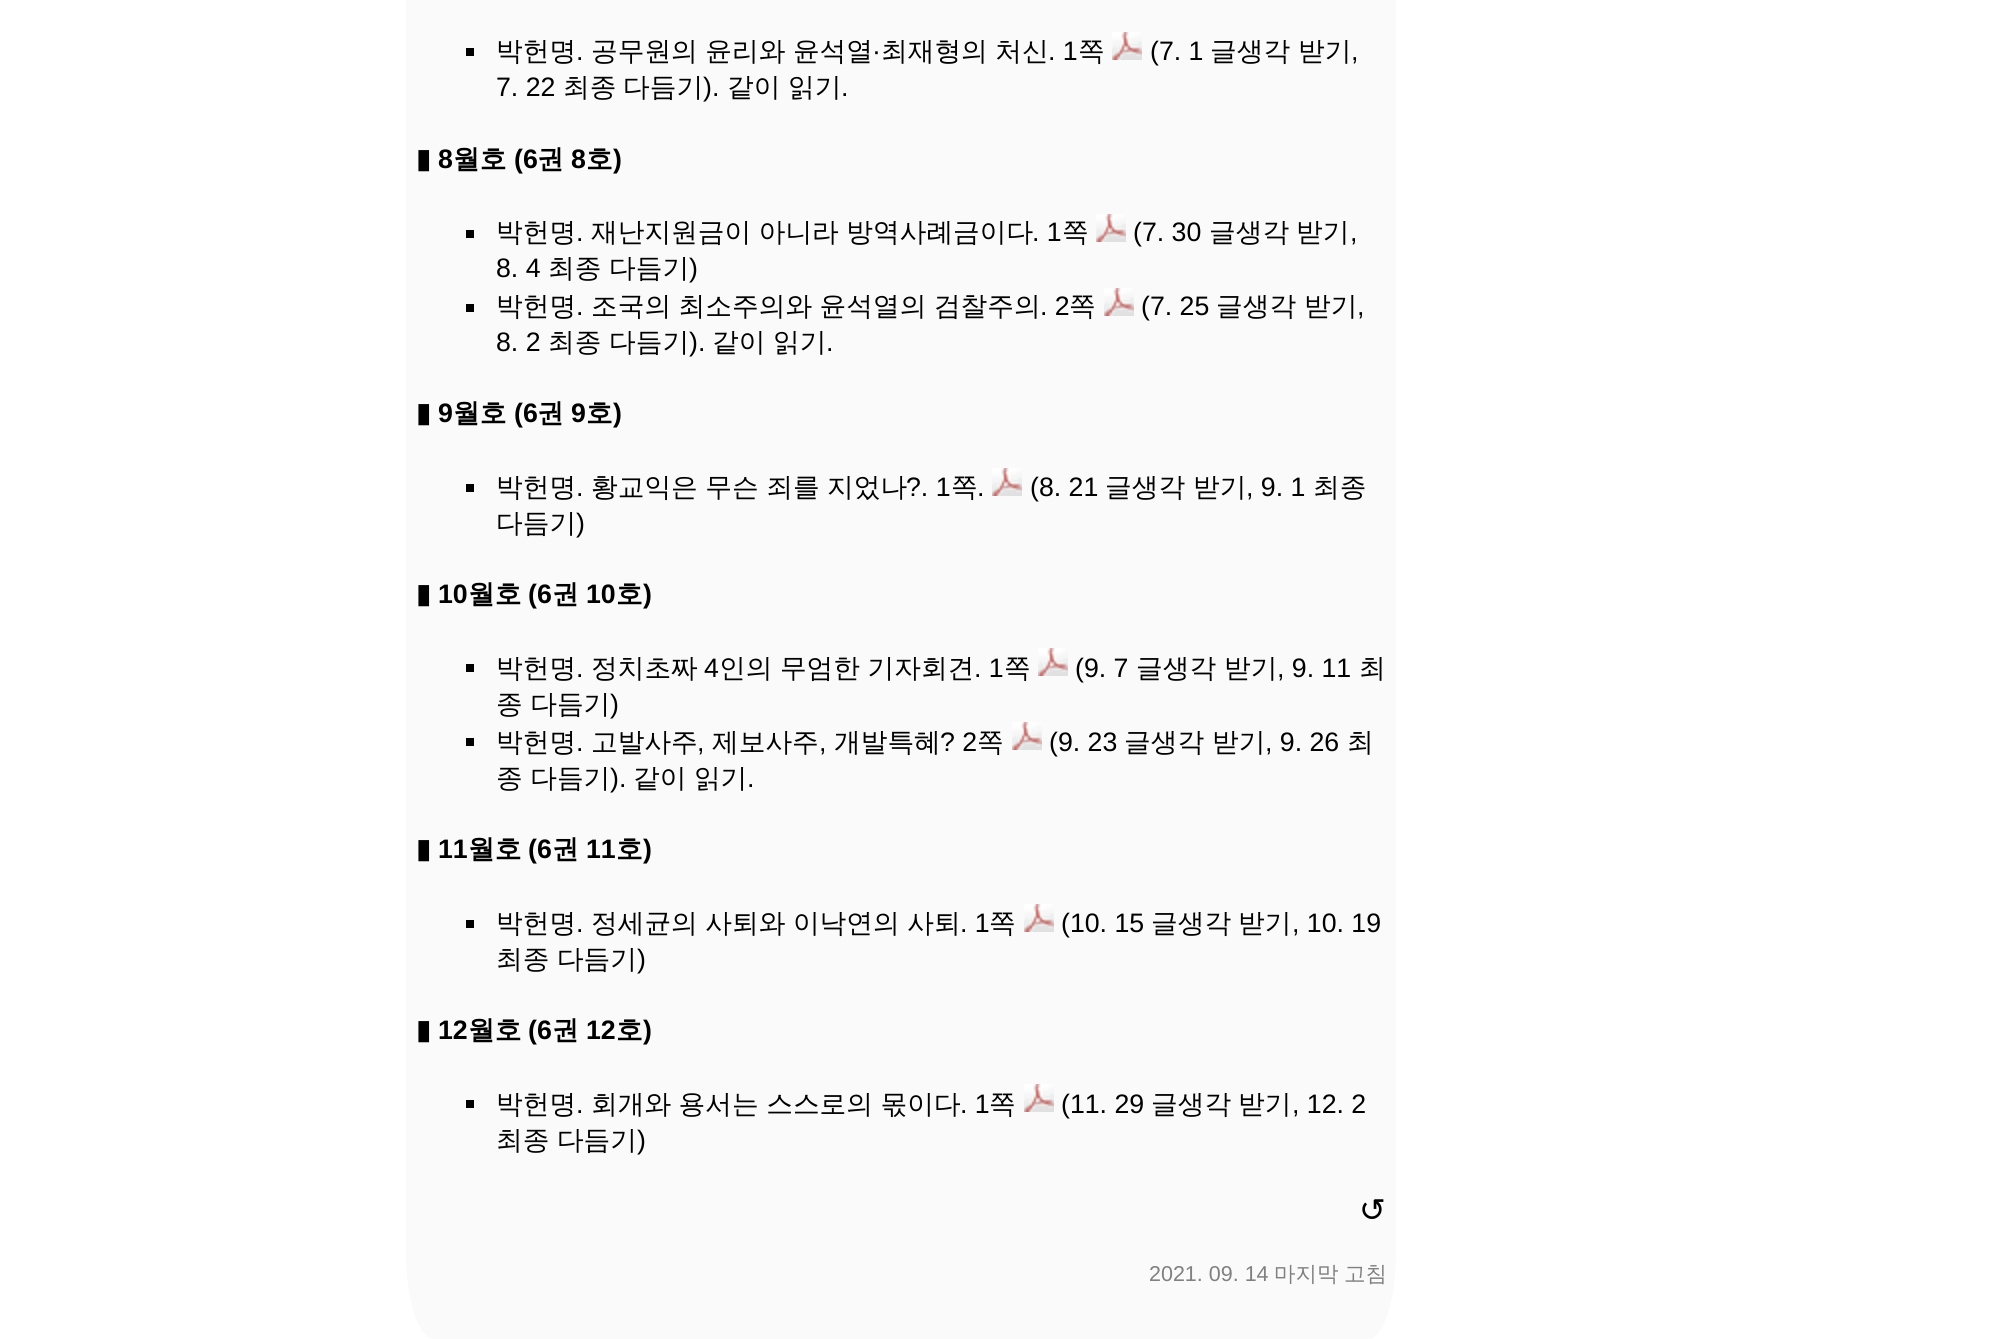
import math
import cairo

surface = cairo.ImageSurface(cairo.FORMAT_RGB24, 2008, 1339)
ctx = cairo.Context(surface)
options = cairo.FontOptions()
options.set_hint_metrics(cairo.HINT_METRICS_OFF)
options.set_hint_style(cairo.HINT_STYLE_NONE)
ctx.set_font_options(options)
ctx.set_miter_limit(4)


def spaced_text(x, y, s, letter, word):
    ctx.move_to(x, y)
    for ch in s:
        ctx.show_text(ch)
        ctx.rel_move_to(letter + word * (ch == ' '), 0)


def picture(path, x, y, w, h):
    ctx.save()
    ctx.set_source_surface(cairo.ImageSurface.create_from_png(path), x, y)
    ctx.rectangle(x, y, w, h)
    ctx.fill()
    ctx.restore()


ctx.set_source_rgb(1, 1, 1)
ctx.paint()
ctx.set_source_rgb(0.98, 0.98, 0.98)
ctx.new_path()
ctx.move_to(436, -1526)
ctx.line_to(1366, -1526)
ctx.curve_to(1383, -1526, 1396, -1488, 1396, -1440)
ctx.line_to(1396, 1254)
ctx.curve_to(1396, 1302, 1383, 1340, 1366, 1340)
ctx.line_to(436, 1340)
ctx.curve_to(419, 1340, 406, 1302, 406, 1254)
ctx.line_to(406, -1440)
ctx.curve_to(406, -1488, 419, -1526, 436, -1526)
ctx.close_path()
ctx.fill()
ctx.set_source_rgb(0, 0, 0)
ctx.rectangle(466, 48, 8, 8)
ctx.fill()
ctx.select_font_face("WenQuanYi Zen Hei Medium")
ctx.set_font_size(26.7)
ctx.move_to(496, 60)
ctx.show_text("박헌명")
spaced_text(591, 60, "공무원의 윤리와 윤석열", 0, -0.5)
ctx.select_font_face("Liberation Sans")
ctx.move_to(872, 60)
ctx.show_text("·")
ctx.select_font_face("WenQuanYi Zen Hei Medium")
spaced_text(881, 60, "최재형의 처신", 0, -0.5)
ctx.select_font_face("Liberation Sans")
ctx.move_to(1048, 60)
ctx.show_text(". 1")
ctx.select_font_face("WenQuanYi Zen Hei Medium")
ctx.move_to(1078, 60)
ctx.show_text("쪽")
picture("img1.png", 1112, 32, 30, 28)
ctx.select_font_face("Liberation Sans")
ctx.move_to(1150, 60)
ctx.show_text("(7. 1")
ctx.select_font_face("WenQuanYi Zen Hei Medium")
ctx.move_to(1210, 60)
ctx.show_text("글생각")
ctx.move_to(1298, 60)
ctx.show_text("받기")
ctx.select_font_face("Liberation Sans")
ctx.move_to(576, 60)
ctx.show_text(".")
ctx.move_to(1351, 60)
ctx.show_text(",")
ctx.move_to(496, 96)
ctx.show_text("7. 22")
ctx.select_font_face("WenQuanYi Zen Hei Medium")
ctx.move_to(563, 96)
ctx.show_text("최종")
ctx.move_to(623, 96)
ctx.show_text("다듬기")
ctx.select_font_face("Liberation Sans")
ctx.move_to(703, 96)
ctx.show_text(").")
ctx.select_font_face("WenQuanYi Zen Hei Medium")
ctx.move_to(727, 96)
ctx.show_text("같이")
ctx.move_to(788, 96)
ctx.show_text("읽기")
ctx.select_font_face("Liberation Sans")
ctx.move_to(841, 96)
ctx.show_text(".")
ctx.select_font_face("DejaVu Sans", cairo.FONT_SLANT_NORMAL, cairo.FONT_WEIGHT_BOLD)
ctx.move_to(416, 168)
ctx.show_text("▮")
ctx.select_font_face("Liberation Sans", cairo.FONT_SLANT_NORMAL, cairo.FONT_WEIGHT_BOLD)
ctx.move_to(438, 168)
ctx.show_text("8")
ctx.select_font_face("WenQuanYi Zen Hei", cairo.FONT_SLANT_NORMAL, cairo.FONT_WEIGHT_BOLD)
ctx.move_to(453, 168)
ctx.show_text("월호")
ctx.select_font_face("Liberation Sans", cairo.FONT_SLANT_NORMAL, cairo.FONT_WEIGHT_BOLD)
ctx.move_to(514, 168)
ctx.show_text("(6")
ctx.select_font_face("WenQuanYi Zen Hei", cairo.FONT_SLANT_NORMAL, cairo.FONT_WEIGHT_BOLD)
ctx.move_to(537, 168)
ctx.show_text("권")
ctx.select_font_face("Liberation Sans", cairo.FONT_SLANT_NORMAL, cairo.FONT_WEIGHT_BOLD)
ctx.move_to(571, 168)
ctx.show_text("8")
ctx.select_font_face("WenQuanYi Zen Hei", cairo.FONT_SLANT_NORMAL, cairo.FONT_WEIGHT_BOLD)
ctx.move_to(586, 168)
ctx.show_text("호")
ctx.select_font_face("Liberation Sans", cairo.FONT_SLANT_NORMAL, cairo.FONT_WEIGHT_BOLD)
ctx.move_to(613, 168)
ctx.show_text(")")
ctx.rectangle(466, 230, 8, 8)
ctx.fill()
ctx.select_font_face("WenQuanYi Zen Hei Medium")
ctx.move_to(496, 241)
ctx.show_text("박헌명")
spaced_text(591, 241, "재난지원금이 아니라 방역사례금이다", 0, -0.5)
ctx.select_font_face("Liberation Sans")
ctx.move_to(1032, 241)
ctx.show_text(". 1")
ctx.select_font_face("WenQuanYi Zen Hei Medium")
ctx.move_to(1062, 241)
ctx.show_text("쪽")
picture("img1.png", 1096, 214, 30, 28)
ctx.select_font_face("Liberation Sans")
ctx.move_to(1133, 241)
ctx.show_text("(7. 30")
ctx.select_font_face("WenQuanYi Zen Hei Medium")
ctx.move_to(1209, 241)
ctx.show_text("글생각")
ctx.move_to(1296, 241)
ctx.show_text("받기")
ctx.select_font_face("Liberation Sans")
ctx.move_to(576, 241)
ctx.show_text(".")
ctx.move_to(1350, 241)
ctx.show_text(",")
ctx.move_to(496, 277)
ctx.show_text("8. 4")
ctx.select_font_face("WenQuanYi Zen Hei Medium")
ctx.move_to(548, 277)
ctx.show_text("최종")
ctx.move_to(609, 277)
ctx.show_text("다듬기")
ctx.select_font_face("Liberation Sans")
ctx.move_to(689, 277)
ctx.show_text(")")
ctx.rectangle(466, 304, 8, 8)
ctx.fill()
ctx.select_font_face("WenQuanYi Zen Hei Medium")
ctx.move_to(496, 315)
ctx.show_text("박헌명")
spaced_text(591, 315, "조국의 최소주의와 윤석열의 검찰주의", 0, -0.5)
ctx.select_font_face("Liberation Sans")
ctx.move_to(1040, 315)
ctx.show_text(". 2")
ctx.select_font_face("WenQuanYi Zen Hei Medium")
ctx.move_to(1069, 315)
ctx.show_text("쪽")
picture("img1.png", 1104, 288, 30, 28)
ctx.select_font_face("Liberation Sans")
ctx.move_to(1141, 315)
ctx.show_text("(7. 25")
ctx.select_font_face("WenQuanYi Zen Hei Medium")
ctx.move_to(1216, 315)
ctx.show_text("글생각")
ctx.move_to(1304, 315)
ctx.show_text("받기")
ctx.select_font_face("Liberation Sans")
ctx.move_to(576, 315)
ctx.show_text(".")
ctx.move_to(1357, 315)
ctx.show_text(",")
ctx.move_to(496, 351)
ctx.show_text("8. 2")
ctx.select_font_face("WenQuanYi Zen Hei Medium")
ctx.move_to(548, 351)
ctx.show_text("최종")
ctx.move_to(609, 351)
ctx.show_text("다듬기")
ctx.select_font_face("Liberation Sans")
ctx.move_to(689, 351)
ctx.show_text(").")
ctx.select_font_face("WenQuanYi Zen Hei Medium")
ctx.move_to(712, 351)
ctx.show_text("같이")
ctx.move_to(773, 351)
ctx.show_text("읽기")
ctx.select_font_face("Liberation Sans")
ctx.move_to(826, 351)
ctx.show_text(".")
ctx.select_font_face("DejaVu Sans", cairo.FONT_SLANT_NORMAL, cairo.FONT_WEIGHT_BOLD)
ctx.move_to(416, 422)
ctx.show_text("▮")
ctx.select_font_face("Liberation Sans", cairo.FONT_SLANT_NORMAL, cairo.FONT_WEIGHT_BOLD)
ctx.move_to(438, 422)
ctx.show_text("9")
ctx.select_font_face("WenQuanYi Zen Hei", cairo.FONT_SLANT_NORMAL, cairo.FONT_WEIGHT_BOLD)
ctx.move_to(453, 422)
ctx.show_text("월호")
ctx.select_font_face("Liberation Sans", cairo.FONT_SLANT_NORMAL, cairo.FONT_WEIGHT_BOLD)
ctx.move_to(514, 422)
ctx.show_text("(6")
ctx.select_font_face("WenQuanYi Zen Hei", cairo.FONT_SLANT_NORMAL, cairo.FONT_WEIGHT_BOLD)
ctx.move_to(537, 422)
ctx.show_text("권")
ctx.select_font_face("Liberation Sans", cairo.FONT_SLANT_NORMAL, cairo.FONT_WEIGHT_BOLD)
ctx.move_to(571, 422)
ctx.show_text("9")
ctx.select_font_face("WenQuanYi Zen Hei", cairo.FONT_SLANT_NORMAL, cairo.FONT_WEIGHT_BOLD)
ctx.move_to(586, 422)
ctx.show_text("호")
ctx.select_font_face("Liberation Sans", cairo.FONT_SLANT_NORMAL, cairo.FONT_WEIGHT_BOLD)
ctx.move_to(613, 422)
ctx.show_text(")")
ctx.rectangle(466, 484, 8, 8)
ctx.fill()
ctx.select_font_face("WenQuanYi Zen Hei Medium")
ctx.move_to(496, 496)
ctx.show_text("박헌명")
spaced_text(591, 496, "황교익은 무슨 죄를 지었나", 0, -0.5)
ctx.select_font_face("Liberation Sans")
ctx.move_to(906, 496)
ctx.show_text("?. 1")
ctx.select_font_face("WenQuanYi Zen Hei Medium")
ctx.move_to(951, 496)
ctx.show_text("쪽")
picture("img1.png", 992, 468, 30, 28)
ctx.select_font_face("Liberation Sans")
ctx.move_to(1030, 496)
ctx.show_text("(8. 21")
ctx.select_font_face("WenQuanYi Zen Hei Medium")
ctx.move_to(1105, 496)
ctx.show_text("글생각")
ctx.move_to(1193, 496)
ctx.show_text("받기")
ctx.select_font_face("Liberation Sans")
ctx.move_to(1246, 496)
ctx.show_text(", 9. 1")
ctx.select_font_face("WenQuanYi Zen Hei Medium")
ctx.move_to(1313, 496)
ctx.show_text("최종")
ctx.select_font_face("Liberation Sans")
ctx.move_to(576, 496)
ctx.show_text(".")
ctx.move_to(977, 496)
ctx.show_text(".")
ctx.select_font_face("WenQuanYi Zen Hei Medium")
ctx.move_to(496, 532)
ctx.show_text("다듬기")
ctx.select_font_face("Liberation Sans")
ctx.move_to(576, 532)
ctx.show_text(")")
ctx.select_font_face("DejaVu Sans", cairo.FONT_SLANT_NORMAL, cairo.FONT_WEIGHT_BOLD)
ctx.move_to(416, 603)
ctx.show_text("▮")
ctx.select_font_face("Liberation Sans", cairo.FONT_SLANT_NORMAL, cairo.FONT_WEIGHT_BOLD)
ctx.move_to(438, 603)
ctx.show_text("10")
ctx.select_font_face("WenQuanYi Zen Hei", cairo.FONT_SLANT_NORMAL, cairo.FONT_WEIGHT_BOLD)
ctx.move_to(468, 603)
ctx.show_text("월호")
ctx.select_font_face("Liberation Sans", cairo.FONT_SLANT_NORMAL, cairo.FONT_WEIGHT_BOLD)
ctx.move_to(528, 603)
ctx.show_text("(6")
ctx.select_font_face("WenQuanYi Zen Hei", cairo.FONT_SLANT_NORMAL, cairo.FONT_WEIGHT_BOLD)
ctx.move_to(552, 603)
ctx.show_text("권")
ctx.select_font_face("Liberation Sans", cairo.FONT_SLANT_NORMAL, cairo.FONT_WEIGHT_BOLD)
ctx.move_to(586, 603)
ctx.show_text("10")
ctx.select_font_face("WenQuanYi Zen Hei", cairo.FONT_SLANT_NORMAL, cairo.FONT_WEIGHT_BOLD)
ctx.move_to(616, 603)
ctx.show_text("호")
ctx.select_font_face("Liberation Sans", cairo.FONT_SLANT_NORMAL, cairo.FONT_WEIGHT_BOLD)
ctx.move_to(643, 603)
ctx.show_text(")")
ctx.rectangle(466, 664, 8, 8)
ctx.fill()
ctx.select_font_face("WenQuanYi Zen Hei Medium")
ctx.move_to(496, 677)
ctx.show_text("박헌명")
ctx.move_to(591, 677)
ctx.show_text("정치초짜")
ctx.select_font_face("Liberation Sans")
ctx.move_to(704, 677)
ctx.show_text("4")
ctx.select_font_face("WenQuanYi Zen Hei Medium")
spaced_text(719, 677, "인의 무엄한 기자회견", 0, -0.5)
ctx.select_font_face("Liberation Sans")
ctx.move_to(974, 677)
ctx.show_text(". 1")
ctx.select_font_face("WenQuanYi Zen Hei Medium")
ctx.move_to(1004, 677)
ctx.show_text("쪽")
picture("img1.png", 1038, 648, 30, 28)
ctx.select_font_face("Liberation Sans")
ctx.move_to(1075, 677)
ctx.show_text("(9. 7")
ctx.select_font_face("WenQuanYi Zen Hei Medium")
ctx.move_to(1136, 677)
ctx.show_text("글생각")
ctx.move_to(1224, 677)
ctx.show_text("받기")
ctx.select_font_face("Liberation Sans")
ctx.move_to(1277, 677)
ctx.show_text(", 9. 11")
ctx.select_font_face("WenQuanYi Zen Hei Medium")
ctx.move_to(1359, 677)
ctx.show_text("최")
ctx.select_font_face("Liberation Sans")
ctx.move_to(576, 677)
ctx.show_text(".")
ctx.select_font_face("WenQuanYi Zen Hei Medium")
spaced_text(496, 713, "종 다듬기", 0, -0.5)
ctx.select_font_face("Liberation Sans")
ctx.move_to(610, 713)
ctx.show_text(")")
ctx.rectangle(466, 738, 8, 8)
ctx.fill()
ctx.select_font_face("WenQuanYi Zen Hei Medium")
ctx.move_to(496, 751)
ctx.show_text("박헌명")
ctx.move_to(591, 751)
ctx.show_text("고발사주")
ctx.move_to(712, 751)
ctx.show_text("제보사주")
ctx.move_to(834, 751)
ctx.show_text("개발특혜")
ctx.select_font_face("Liberation Sans")
ctx.move_to(940, 751)
ctx.show_text("? 2")
ctx.select_font_face("WenQuanYi Zen Hei Medium")
ctx.move_to(977, 751)
ctx.show_text("쪽")
picture("img1.png", 1012, 722, 30, 28)
ctx.select_font_face("Liberation Sans")
ctx.move_to(1049, 751)
ctx.show_text("(9. 23")
ctx.select_font_face("WenQuanYi Zen Hei Medium")
ctx.move_to(1124, 751)
ctx.show_text("글생각")
ctx.move_to(1212, 751)
ctx.show_text("받기")
ctx.select_font_face("Liberation Sans")
ctx.move_to(1265, 751)
ctx.show_text(", 9. 26")
ctx.select_font_face("WenQuanYi Zen Hei Medium")
ctx.move_to(1347, 751)
ctx.show_text("최")
ctx.select_font_face("Liberation Sans")
ctx.move_to(576, 751)
ctx.show_text(".")
ctx.move_to(697, 751)
ctx.show_text(",")
ctx.move_to(819, 751)
ctx.show_text(",")
ctx.select_font_face("WenQuanYi Zen Hei Medium")
spaced_text(496, 787, "종 다듬기", 0, -0.5)
ctx.select_font_face("Liberation Sans")
ctx.move_to(610, 787)
ctx.show_text(").")
ctx.select_font_face("WenQuanYi Zen Hei Medium")
spaced_text(633, 787, "같이 읽기", 0, -0.5)
ctx.select_font_face("Liberation Sans")
ctx.move_to(747, 787)
ctx.show_text(".")
ctx.select_font_face("DejaVu Sans", cairo.FONT_SLANT_NORMAL, cairo.FONT_WEIGHT_BOLD)
ctx.move_to(416, 858)
ctx.show_text("▮")
ctx.select_font_face("Liberation Sans", cairo.FONT_SLANT_NORMAL, cairo.FONT_WEIGHT_BOLD)
ctx.move_to(438, 858)
ctx.show_text("11")
ctx.select_font_face("WenQuanYi Zen Hei", cairo.FONT_SLANT_NORMAL, cairo.FONT_WEIGHT_BOLD)
ctx.move_to(468, 858)
ctx.show_text("월호")
ctx.select_font_face("Liberation Sans", cairo.FONT_SLANT_NORMAL, cairo.FONT_WEIGHT_BOLD)
ctx.move_to(528, 858)
ctx.show_text("(6")
ctx.select_font_face("WenQuanYi Zen Hei", cairo.FONT_SLANT_NORMAL, cairo.FONT_WEIGHT_BOLD)
ctx.move_to(552, 858)
ctx.show_text("권")
ctx.select_font_face("Liberation Sans", cairo.FONT_SLANT_NORMAL, cairo.FONT_WEIGHT_BOLD)
ctx.move_to(586, 858)
ctx.show_text("11")
ctx.select_font_face("WenQuanYi Zen Hei", cairo.FONT_SLANT_NORMAL, cairo.FONT_WEIGHT_BOLD)
ctx.move_to(616, 858)
ctx.show_text("호")
ctx.select_font_face("Liberation Sans", cairo.FONT_SLANT_NORMAL, cairo.FONT_WEIGHT_BOLD)
ctx.move_to(643, 858)
ctx.show_text(")")
ctx.rectangle(466, 920, 8, 8)
ctx.fill()
ctx.select_font_face("WenQuanYi Zen Hei Medium")
ctx.move_to(496, 932)
ctx.show_text("박헌명")
spaced_text(591, 932, "정세균의 사퇴와 이낙연의 사퇴", 0, -0.5)
ctx.select_font_face("Liberation Sans")
ctx.move_to(960, 932)
ctx.show_text(". 1")
ctx.select_font_face("WenQuanYi Zen Hei Medium")
ctx.move_to(989, 932)
ctx.show_text("쪽")
picture("img1.png", 1024, 904, 30, 28)
ctx.select_font_face("Liberation Sans")
ctx.move_to(1061, 932)
ctx.show_text("(10. 15")
ctx.select_font_face("WenQuanYi Zen Hei Medium")
ctx.move_to(1151, 932)
ctx.show_text("글생각")
ctx.move_to(1238, 932)
ctx.show_text("받기")
ctx.select_font_face("Liberation Sans")
ctx.move_to(1292, 932)
ctx.show_text(", 10. 19")
ctx.move_to(576, 932)
ctx.show_text(".")
ctx.select_font_face("WenQuanYi Zen Hei Medium")
spaced_text(496, 968, "최종 다듬기", 0, -0.5)
ctx.select_font_face("Liberation Sans")
ctx.move_to(637, 968)
ctx.show_text(")")
ctx.select_font_face("DejaVu Sans", cairo.FONT_SLANT_NORMAL, cairo.FONT_WEIGHT_BOLD)
ctx.move_to(416, 1039)
ctx.show_text("▮")
ctx.select_font_face("Liberation Sans", cairo.FONT_SLANT_NORMAL, cairo.FONT_WEIGHT_BOLD)
ctx.move_to(438, 1039)
ctx.show_text("12")
ctx.select_font_face("WenQuanYi Zen Hei", cairo.FONT_SLANT_NORMAL, cairo.FONT_WEIGHT_BOLD)
ctx.move_to(468, 1039)
ctx.show_text("월호")
ctx.select_font_face("Liberation Sans", cairo.FONT_SLANT_NORMAL, cairo.FONT_WEIGHT_BOLD)
ctx.move_to(528, 1039)
ctx.show_text("(6")
ctx.select_font_face("WenQuanYi Zen Hei", cairo.FONT_SLANT_NORMAL, cairo.FONT_WEIGHT_BOLD)
ctx.move_to(552, 1039)
ctx.show_text("권")
ctx.select_font_face("Liberation Sans", cairo.FONT_SLANT_NORMAL, cairo.FONT_WEIGHT_BOLD)
ctx.move_to(586, 1039)
ctx.show_text("12")
ctx.select_font_face("WenQuanYi Zen Hei", cairo.FONT_SLANT_NORMAL, cairo.FONT_WEIGHT_BOLD)
ctx.move_to(616, 1039)
ctx.show_text("호")
ctx.select_font_face("Liberation Sans", cairo.FONT_SLANT_NORMAL, cairo.FONT_WEIGHT_BOLD)
ctx.move_to(643, 1039)
ctx.show_text(")")
ctx.rectangle(466, 1100, 8, 8)
ctx.fill()
ctx.select_font_face("WenQuanYi Zen Hei Medium")
ctx.move_to(496, 1113)
ctx.show_text("박헌명")
spaced_text(591, 1113, "회개와 용서는 스스로의 몫이다", 0, -0.5)
ctx.select_font_face("Liberation Sans")
ctx.move_to(960, 1113)
ctx.show_text(". 1")
ctx.select_font_face("WenQuanYi Zen Hei Medium")
ctx.move_to(989, 1113)
ctx.show_text("쪽")
picture("img1.png", 1024, 1084, 30, 28)
ctx.select_font_face("Liberation Sans")
ctx.move_to(1061, 1113)
ctx.show_text("(11. 29")
ctx.select_font_face("WenQuanYi Zen Hei Medium")
ctx.move_to(1151, 1113)
ctx.show_text("글생각")
ctx.move_to(1238, 1113)
ctx.show_text("받기")
ctx.select_font_face("Liberation Sans")
ctx.move_to(1292, 1113)
ctx.show_text(", 12. 2")
ctx.move_to(576, 1113)
ctx.show_text(".")
ctx.select_font_face("WenQuanYi Zen Hei Medium")
spaced_text(496, 1149, "최종 다듬기", 0, -0.5)
ctx.select_font_face("Liberation Sans")
ctx.move_to(637, 1149)
ctx.show_text(")")
ctx.select_font_face("DejaVu Sans")
ctx.set_font_size(32)
ctx.move_to(1359, 1221)
ctx.show_text("↺")
ctx.select_font_face("Liberation Sans")
ctx.set_font_size(21.5)
ctx.set_source_rgb(0.502, 0.502, 0.502)
ctx.move_to(1149, 1281)
ctx.show_text("2021. 09. 14")
ctx.select_font_face("WenQuanYi Zen Hei Medium")
ctx.move_to(1274, 1281)
ctx.show_text("마지막")
ctx.move_to(1344, 1281)
ctx.show_text("고침")
surface.write_to_png("page.png")
